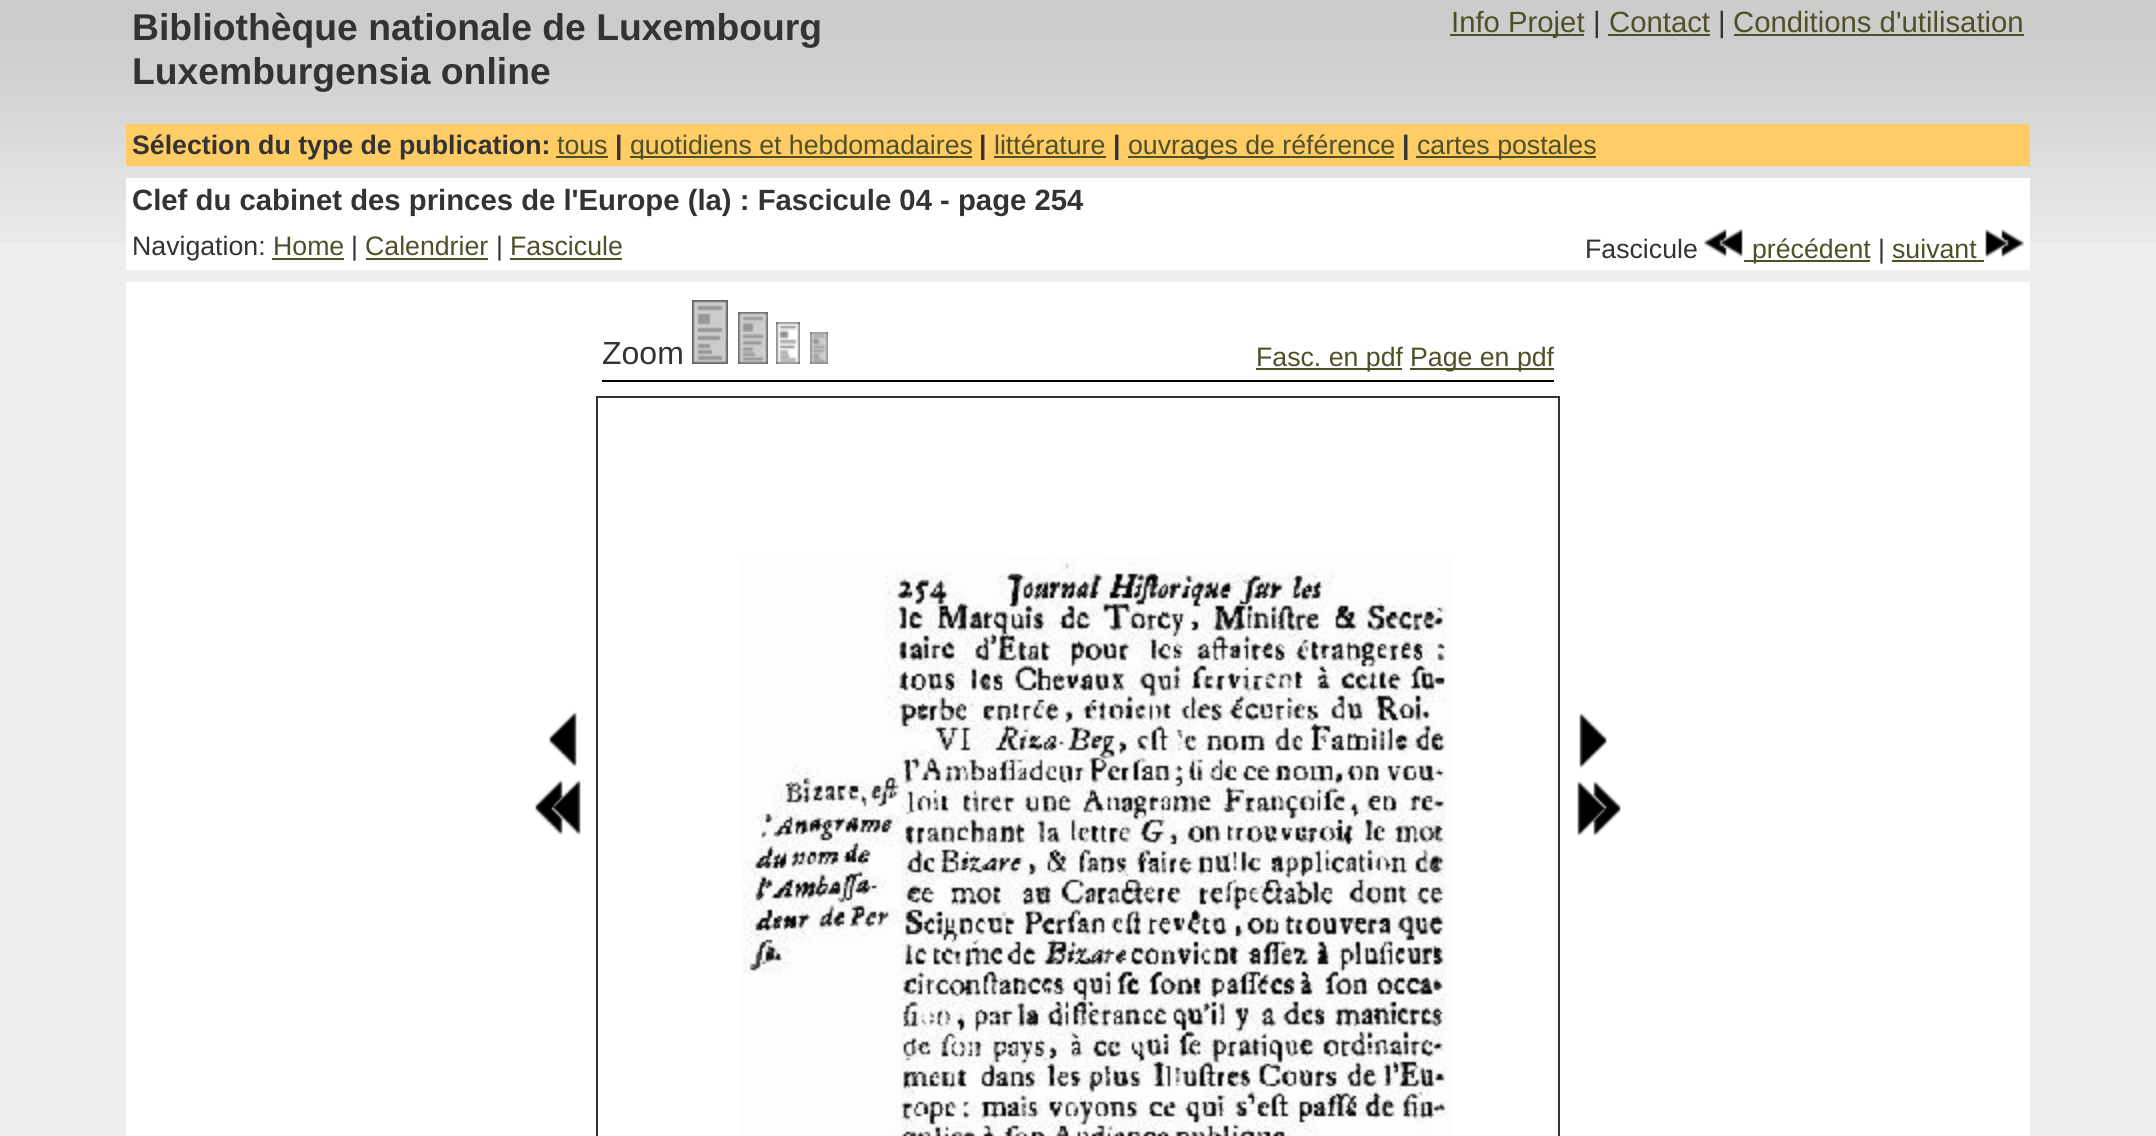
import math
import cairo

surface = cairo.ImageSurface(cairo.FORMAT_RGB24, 2156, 1136)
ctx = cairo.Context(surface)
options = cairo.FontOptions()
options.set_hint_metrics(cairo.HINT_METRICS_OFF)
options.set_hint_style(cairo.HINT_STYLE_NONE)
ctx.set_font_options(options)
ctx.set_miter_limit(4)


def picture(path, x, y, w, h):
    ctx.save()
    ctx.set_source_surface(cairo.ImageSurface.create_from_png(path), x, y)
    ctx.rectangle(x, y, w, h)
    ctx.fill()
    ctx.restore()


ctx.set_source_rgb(0.933, 0.933, 0.933)
ctx.paint()
picture("img1.png", 0, 0, 2156, 242)
picture("img2.png", 126, 0, 1904, 124)
ctx.select_font_face("Liberation Sans", cairo.FONT_SLANT_NORMAL, cairo.FONT_WEIGHT_BOLD)
ctx.set_font_size(37.3)
ctx.set_source_rgb(0.2, 0.2, 0.2)
ctx.move_to(132, 40)
ctx.show_text("Bibliothèque nationale de Luxembourg")
ctx.move_to(132, 84)
ctx.show_text("Luxemburgensia online")
ctx.set_source_rgb(0.31, 0.31, 0.157)
ctx.rectangle(1450, 34, 134, 2)
ctx.fill()
ctx.select_font_face("Liberation Sans")
ctx.set_font_size(29.3)
ctx.move_to(1451, 32)
ctx.show_text("Info Projet")
ctx.set_source_rgb(0.2, 0.2, 0.2)
ctx.move_to(1593, 32)
ctx.show_text("|")
ctx.set_source_rgb(0.31, 0.31, 0.157)
ctx.move_to(1609, 32)
ctx.show_text("Contact")
ctx.rectangle(1608, 34, 102, 2)
ctx.fill()
ctx.set_source_rgb(0.2, 0.2, 0.2)
ctx.move_to(1718, 32)
ctx.show_text("|")
ctx.set_source_rgb(0.31, 0.31, 0.157)
ctx.move_to(1733, 32)
ctx.show_text("Conditions d'utilisation")
ctx.rectangle(1734, 34, 290, 2)
ctx.fill()
ctx.set_source_rgb(1, 0.8, 0.4)
ctx.rectangle(126, 124, 1904, 42)
ctx.fill()
ctx.select_font_face("Liberation Sans", cairo.FONT_SLANT_NORMAL, cairo.FONT_WEIGHT_BOLD)
ctx.set_font_size(26.7)
ctx.set_source_rgb(0.2, 0.2, 0.2)
ctx.move_to(132, 154)
ctx.show_text("Sélection du type de publication:")
ctx.select_font_face("Liberation Sans")
ctx.set_source_rgb(0.31, 0.31, 0.157)
ctx.move_to(557, 154)
ctx.show_text("tous")
ctx.rectangle(556, 156, 52, 2)
ctx.fill()
ctx.select_font_face("Liberation Sans", cairo.FONT_SLANT_NORMAL, cairo.FONT_WEIGHT_BOLD)
ctx.set_source_rgb(0.2, 0.2, 0.2)
ctx.move_to(615, 154)
ctx.show_text("|")
ctx.set_source_rgb(0.31, 0.31, 0.157)
ctx.rectangle(630, 156, 342, 2)
ctx.fill()
ctx.select_font_face("Liberation Sans")
ctx.move_to(630, 154)
ctx.show_text("quotidiens et hebdomadaires")
ctx.select_font_face("Liberation Sans", cairo.FONT_SLANT_NORMAL, cairo.FONT_WEIGHT_BOLD)
ctx.set_source_rgb(0.2, 0.2, 0.2)
ctx.move_to(979, 154)
ctx.show_text("|")
ctx.select_font_face("Liberation Sans")
ctx.set_source_rgb(0.31, 0.31, 0.157)
ctx.move_to(994, 154)
ctx.show_text("littérature")
ctx.rectangle(994, 156, 112, 2)
ctx.fill()
ctx.select_font_face("Liberation Sans", cairo.FONT_SLANT_NORMAL, cairo.FONT_WEIGHT_BOLD)
ctx.set_source_rgb(0.2, 0.2, 0.2)
ctx.move_to(1113, 154)
ctx.show_text("|")
ctx.set_source_rgb(0.31, 0.31, 0.157)
ctx.rectangle(1128, 156, 266, 2)
ctx.fill()
ctx.select_font_face("Liberation Sans")
ctx.move_to(1128, 154)
ctx.show_text("ouvrages de référence")
ctx.select_font_face("Liberation Sans", cairo.FONT_SLANT_NORMAL, cairo.FONT_WEIGHT_BOLD)
ctx.set_source_rgb(0.2, 0.2, 0.2)
ctx.move_to(1402, 154)
ctx.show_text("|")
ctx.set_source_rgb(0.31, 0.31, 0.157)
ctx.rectangle(1416, 156, 180, 2)
ctx.fill()
ctx.select_font_face("Liberation Sans")
ctx.move_to(1417, 154)
ctx.show_text("cartes postales")
ctx.set_source_rgb(1, 1, 1)
ctx.rectangle(126, 178, 1904, 92)
ctx.fill()
ctx.select_font_face("Liberation Sans", cairo.FONT_SLANT_NORMAL, cairo.FONT_WEIGHT_BOLD)
ctx.set_font_size(29.3)
ctx.set_source_rgb(0.2, 0.2, 0.2)
ctx.move_to(132, 210)
ctx.show_text("Clef du cabinet des princes de l'Europe (la) : Fascicule 04 - page 254")
ctx.select_font_face("Liberation Sans")
ctx.set_font_size(26.7)
ctx.move_to(132, 255)
ctx.show_text("Navigation:")
ctx.set_source_rgb(0.31, 0.31, 0.157)
ctx.move_to(273, 255)
ctx.show_text("Home")
ctx.rectangle(272, 258, 72, 2)
ctx.fill()
ctx.set_source_rgb(0.2, 0.2, 0.2)
ctx.move_to(351, 255)
ctx.show_text("|")
ctx.set_source_rgb(0.31, 0.31, 0.157)
ctx.move_to(365, 255)
ctx.show_text("Calendrier")
ctx.rectangle(366, 258, 122, 2)
ctx.fill()
ctx.set_source_rgb(0.2, 0.2, 0.2)
ctx.move_to(496, 255)
ctx.show_text("|")
ctx.set_source_rgb(0.31, 0.31, 0.157)
ctx.move_to(510, 255)
ctx.show_text("Fascicule")
ctx.rectangle(510, 258, 112, 2)
ctx.fill()
ctx.set_source_rgb(0.2, 0.2, 0.2)
ctx.move_to(1585, 258)
ctx.show_text("Fascicule")
picture("img3.png", 1704, 228, 39, 29)
ctx.set_source_rgb(0.31, 0.31, 0.157)
ctx.rectangle(1744, 260, 126, 2)
ctx.fill()
ctx.move_to(1752, 258)
ctx.show_text("précédent")
ctx.set_source_rgb(0.2, 0.2, 0.2)
ctx.move_to(1878, 258)
ctx.show_text("|")
ctx.set_source_rgb(0.31, 0.31, 0.157)
ctx.move_to(1892, 258)
ctx.show_text("suivant")
ctx.rectangle(1892, 260, 92, 2)
ctx.fill()
picture("img4.png", 1985, 229, 39, 29)
ctx.set_source_rgb(1, 1, 1)
ctx.rectangle(126, 282, 1904, 854)
ctx.fill()
ctx.set_font_size(32)
ctx.set_source_rgb(0.2, 0.2, 0.2)
ctx.move_to(602, 364)
ctx.show_text("Zoom")
picture("img5.png", 692, 300, 36, 64)
picture("img6.png", 738, 312, 30, 52)
picture("img7.png", 776, 322, 24, 42)
picture("img8.png", 810, 332, 18, 32)
ctx.set_source_rgb(0.31, 0.31, 0.157)
ctx.rectangle(1256, 368, 146, 2)
ctx.fill()
ctx.set_font_size(26.7)
ctx.move_to(1256, 366)
ctx.show_text("Fasc. en pdf")
ctx.rectangle(1410, 368, 144, 2)
ctx.fill()
ctx.move_to(1410, 366)
ctx.show_text("Page en pdf")
ctx.set_source_rgb(0, 0, 0)
ctx.rectangle(602, 380, 952, 2)
ctx.fill()
picture("img9.png", 549, 711, 28, 56)
picture("img10.png", 535, 779, 46, 56)
ctx.rectangle(597, 397, 962, 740)
ctx.set_source_rgb(0.2, 0.2, 0.2)
ctx.stroke()
picture("img11.png", 741, 557, 712, 579)
picture("img12.png", 1579, 713, 28, 56)
picture("img13.png", 1577, 781, 44, 56)
surface.write_to_png("page.png")
